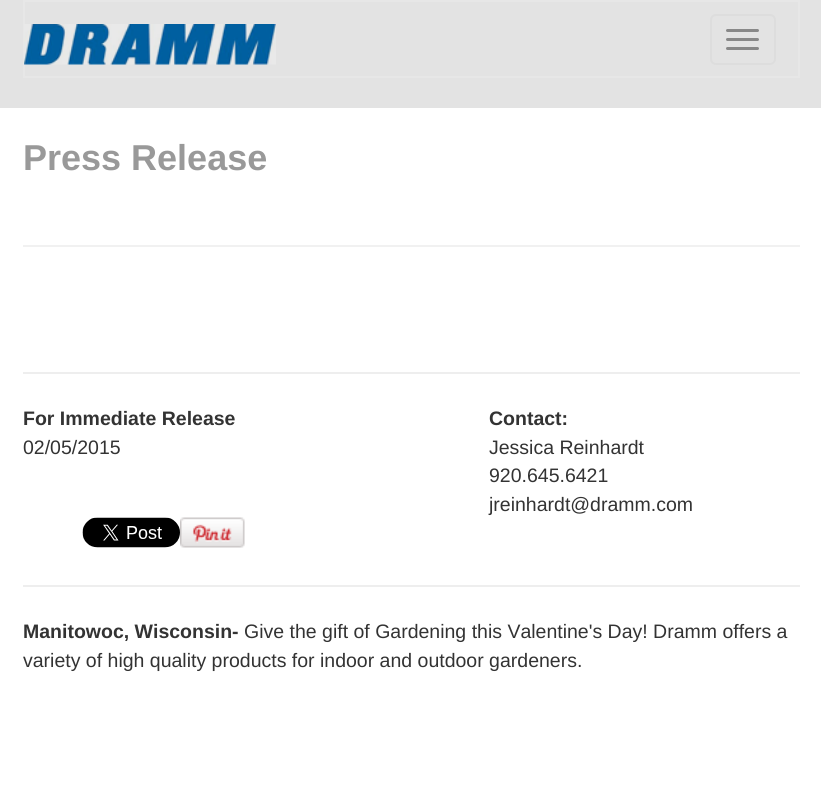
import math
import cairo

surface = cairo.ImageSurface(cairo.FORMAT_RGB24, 821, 792)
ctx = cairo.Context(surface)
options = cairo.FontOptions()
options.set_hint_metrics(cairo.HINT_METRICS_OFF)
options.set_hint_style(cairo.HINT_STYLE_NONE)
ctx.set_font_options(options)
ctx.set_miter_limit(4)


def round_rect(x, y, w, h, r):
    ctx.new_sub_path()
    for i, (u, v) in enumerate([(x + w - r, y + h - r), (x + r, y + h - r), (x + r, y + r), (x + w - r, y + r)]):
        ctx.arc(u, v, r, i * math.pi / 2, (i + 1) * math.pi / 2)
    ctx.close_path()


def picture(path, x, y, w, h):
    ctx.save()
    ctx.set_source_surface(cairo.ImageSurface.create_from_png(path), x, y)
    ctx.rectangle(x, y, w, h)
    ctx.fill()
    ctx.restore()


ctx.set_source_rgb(0.89, 0.89, 0.89)
ctx.paint()
ctx.rectangle(24, 1, 775, 76)
ctx.set_source_rgb(0.906, 0.906, 0.906)
ctx.stroke()
picture("img1.png", 24, 24, 252, 41)
round_rect(711, 15, 64, 49, 5)
ctx.set_source_rgb(0.867, 0.867, 0.867)
ctx.stroke()
ctx.set_source_rgb(0.533, 0.533, 0.533)
round_rect(726, 29, 33, 3, 1.5)
ctx.fill()
round_rect(726, 38, 33, 3, 1.5)
ctx.fill()
round_rect(726, 47, 33, 3, 1.5)
ctx.fill()
ctx.set_source_rgb(1, 1, 1)
ctx.rectangle(0, 108, 821, 684)
ctx.fill()
ctx.select_font_face("Liberation Sans", cairo.FONT_SLANT_NORMAL, cairo.FONT_WEIGHT_BOLD)
ctx.set_font_size(36)
ctx.set_source_rgb(0.6, 0.6, 0.6)
ctx.move_to(23, 170)
ctx.show_text("Press Release")
ctx.set_source_rgb(0.945, 0.945, 0.945)
ctx.rectangle(23, 245, 777, 2)
ctx.fill()
ctx.set_source_rgb(0.933, 0.933, 0.933)
ctx.rectangle(23, 372, 777, 2)
ctx.fill()
ctx.set_font_size(19.5)
ctx.set_source_rgb(0.2, 0.2, 0.2)
ctx.move_to(23, 425)
ctx.show_text("For Immediate Release")
ctx.select_font_face("Liberation Sans")
ctx.move_to(23, 454)
ctx.show_text("02/05/2015")
ctx.select_font_face("Liberation Sans", cairo.FONT_SLANT_NORMAL, cairo.FONT_WEIGHT_BOLD)
ctx.move_to(489, 425)
ctx.show_text("Contact:")
ctx.select_font_face("Liberation Sans")
ctx.move_to(489, 454)
ctx.show_text("Jessica Reinhardt")
ctx.move_to(489, 482)
ctx.show_text("920.645.6421")
ctx.move_to(489, 511)
ctx.show_text("jreinhardt@dramm.com")
picture("img2.png", 82, 517, 98, 31)
picture("img3.png", 180, 517, 65, 31)
ctx.set_source_rgb(0.933, 0.933, 0.933)
ctx.rectangle(23, 585, 777, 2)
ctx.fill()
ctx.select_font_face("Liberation Sans", cairo.FONT_SLANT_NORMAL, cairo.FONT_WEIGHT_BOLD)
ctx.set_source_rgb(0.2, 0.2, 0.2)
ctx.move_to(23, 638)
ctx.show_text("Manitowoc, Wisconsin-")
ctx.select_font_face("Liberation Sans")
ctx.move_to(244, 638)
ctx.show_text("Give the gift of Gardening this Valentine's Day! Dramm offers a")
ctx.move_to(23, 667)
ctx.show_text("variety of high quality products for indoor and outdoor gardeners.")
surface.write_to_png("page.png")
